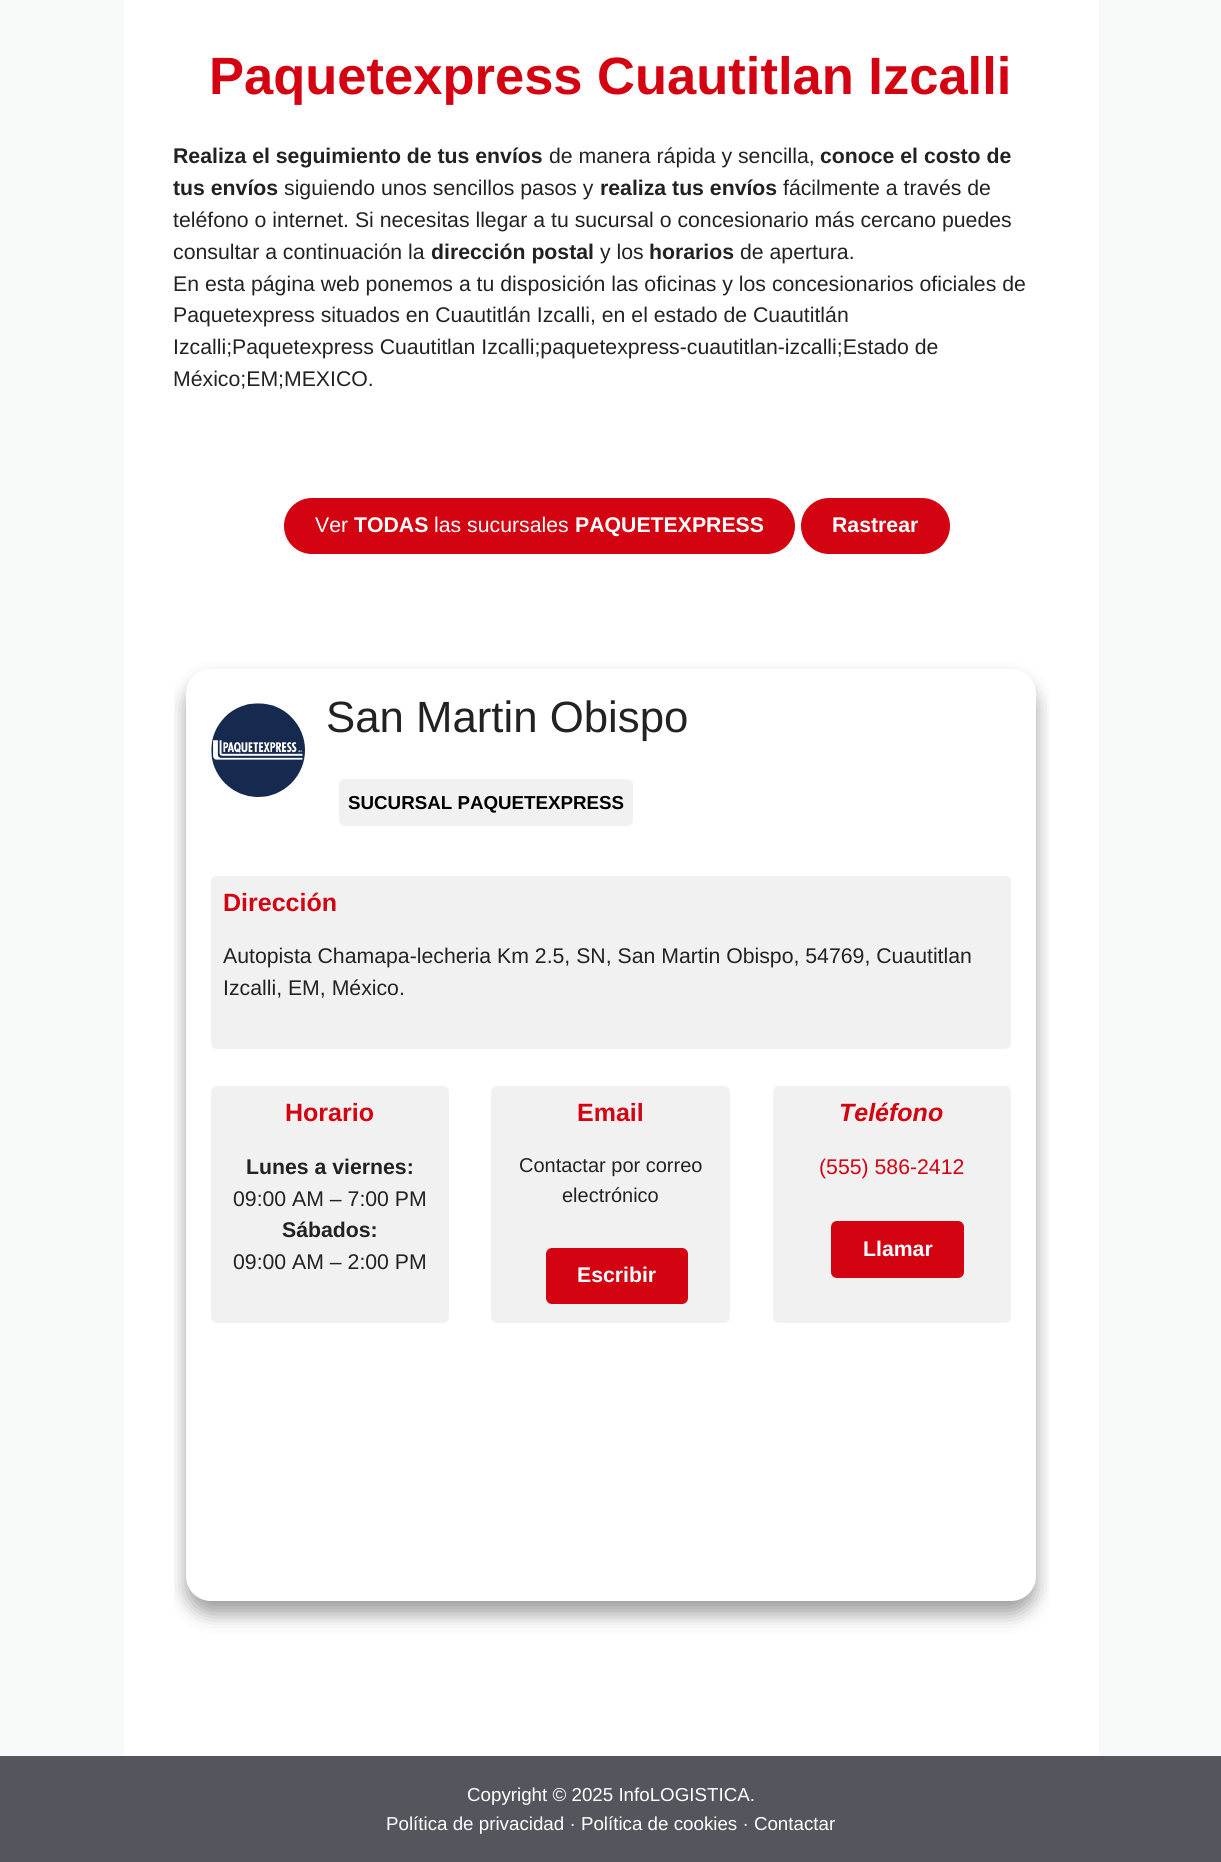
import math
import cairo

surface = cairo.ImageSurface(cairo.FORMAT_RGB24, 1221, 1862)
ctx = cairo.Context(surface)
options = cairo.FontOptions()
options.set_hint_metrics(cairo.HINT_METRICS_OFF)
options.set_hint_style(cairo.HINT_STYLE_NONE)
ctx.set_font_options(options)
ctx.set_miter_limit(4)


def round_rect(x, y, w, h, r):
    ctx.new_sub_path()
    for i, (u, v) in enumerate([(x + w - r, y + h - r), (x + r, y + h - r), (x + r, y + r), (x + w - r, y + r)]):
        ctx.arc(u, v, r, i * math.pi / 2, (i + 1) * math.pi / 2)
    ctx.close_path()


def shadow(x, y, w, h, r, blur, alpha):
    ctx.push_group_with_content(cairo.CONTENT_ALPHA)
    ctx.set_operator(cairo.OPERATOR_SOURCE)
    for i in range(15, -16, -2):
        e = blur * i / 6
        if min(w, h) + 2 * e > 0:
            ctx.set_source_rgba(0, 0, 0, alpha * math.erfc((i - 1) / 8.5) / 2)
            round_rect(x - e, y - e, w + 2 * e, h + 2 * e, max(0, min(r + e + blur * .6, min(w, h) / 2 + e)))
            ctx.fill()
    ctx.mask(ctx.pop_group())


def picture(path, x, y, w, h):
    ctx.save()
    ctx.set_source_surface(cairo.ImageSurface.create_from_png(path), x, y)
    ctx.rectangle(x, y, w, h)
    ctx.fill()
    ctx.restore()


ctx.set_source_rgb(0.969, 0.973, 0.976)
ctx.paint()
ctx.set_source_rgb(1, 1, 1)
ctx.rectangle(124, 0, 975, 1756)
ctx.fill()
ctx.select_font_face("Liberation Sans", cairo.FONT_SLANT_NORMAL, cairo.FONT_WEIGHT_BOLD)
ctx.set_font_size(52.5)
ctx.set_source_rgb(0.831, 0.012, 0.067)
ctx.move_to(209, 94)
ctx.show_text("Paquetexpress Cuautitlan Izcalli")
ctx.set_font_size(21.25)
ctx.set_source_rgb(0.133, 0.133, 0.133)
ctx.move_to(173, 163)
ctx.show_text("Realiza el seguimiento de tus envíos")
ctx.select_font_face("Liberation Sans")
ctx.move_to(549, 163)
ctx.show_text("de manera rápida y sencilla,")
ctx.select_font_face("Liberation Sans", cairo.FONT_SLANT_NORMAL, cairo.FONT_WEIGHT_BOLD)
ctx.move_to(820, 163)
ctx.show_text("conoce el costo de")
ctx.move_to(173, 195)
ctx.show_text("tus envíos")
ctx.select_font_face("Liberation Sans")
ctx.move_to(284, 195)
ctx.show_text("siguiendo unos sencillos pasos y")
ctx.select_font_face("Liberation Sans", cairo.FONT_SLANT_NORMAL, cairo.FONT_WEIGHT_BOLD)
ctx.move_to(600, 195)
ctx.show_text("realiza tus envíos")
ctx.select_font_face("Liberation Sans")
ctx.move_to(783, 195)
ctx.show_text("fácilmente a través de")
ctx.move_to(173, 227)
ctx.show_text("teléfono o internet. Si necesitas llegar a tu sucursal o concesionario más cercano puedes")
ctx.move_to(173, 259)
ctx.show_text("consultar a continuación la")
ctx.select_font_face("Liberation Sans", cairo.FONT_SLANT_NORMAL, cairo.FONT_WEIGHT_BOLD)
ctx.move_to(431, 259)
ctx.show_text("dirección postal")
ctx.select_font_face("Liberation Sans")
ctx.move_to(600, 259)
ctx.show_text("y los")
ctx.select_font_face("Liberation Sans", cairo.FONT_SLANT_NORMAL, cairo.FONT_WEIGHT_BOLD)
ctx.move_to(649, 259)
ctx.show_text("horarios")
ctx.select_font_face("Liberation Sans")
ctx.move_to(740, 259)
ctx.show_text("de apertura.")
ctx.move_to(173, 291)
ctx.show_text("En esta página web ponemos a tu disposición las oficinas y los concesionarios oficiales de")
ctx.move_to(173, 322)
ctx.show_text("Paquetexpress situados en Cuautitlán Izcalli, en el estado de Cuautitlán")
ctx.move_to(173, 354)
ctx.show_text("Izcalli;Paquetexpress Cuautitlan Izcalli;paquetexpress-cuautitlan-izcalli;Estado de")
ctx.move_to(173, 386)
ctx.show_text("México;EM;MEXICO.")
ctx.set_source_rgb(0.831, 0.012, 0.067)
round_rect(284, 498, 511, 56, 28)
ctx.fill()
ctx.set_source_rgb(1, 1, 1)
ctx.move_to(315, 532)
ctx.show_text("Ver")
ctx.select_font_face("Liberation Sans", cairo.FONT_SLANT_NORMAL, cairo.FONT_WEIGHT_BOLD)
ctx.move_to(354, 532)
ctx.show_text("TODAS")
ctx.select_font_face("Liberation Sans")
ctx.move_to(434, 532)
ctx.show_text("las sucursales")
ctx.select_font_face("Liberation Sans", cairo.FONT_SLANT_NORMAL, cairo.FONT_WEIGHT_BOLD)
ctx.move_to(575, 532)
ctx.show_text("PAQUETEXPRESS")
ctx.set_source_rgb(0.831, 0.012, 0.067)
round_rect(801, 498, 149, 56, 28)
ctx.fill()
ctx.set_source_rgb(1, 1, 1)
ctx.move_to(832, 532)
ctx.show_text("Rastrear")
ctx.save()
ctx.rectangle(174, 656, 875, 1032)
ctx.clip()
ctx.set_source_rgb(0, 0, 0)
shadow(186, 681, 850, 933, 25, 9.5, 0.38)
ctx.restore()
round_rect(186, 669, 850, 932, 25)
ctx.fill()
picture("img1.png", 211, 703, 94, 94)
ctx.select_font_face("Liberation Sans")
ctx.set_font_size(43.75)
ctx.set_source_rgb(0.133, 0.133, 0.133)
ctx.move_to(326, 732)
ctx.show_text("San Martin Obispo")
ctx.set_source_rgb(0.945, 0.945, 0.945)
round_rect(339, 779, 294, 47, 6)
ctx.fill()
ctx.select_font_face("Liberation Sans", cairo.FONT_SLANT_NORMAL, cairo.FONT_WEIGHT_BOLD)
ctx.set_font_size(18.75)
ctx.set_source_rgb(0, 0, 0)
ctx.move_to(348, 809)
ctx.show_text("SUCURSAL PAQUETEXPRESS")
ctx.set_source_rgb(0.945, 0.945, 0.945)
round_rect(211, 876, 800, 173, 6)
ctx.fill()
ctx.set_font_size(25)
ctx.set_source_rgb(0.831, 0.012, 0.067)
ctx.move_to(223, 911)
ctx.show_text("Dirección")
ctx.select_font_face("Liberation Sans")
ctx.set_font_size(21.25)
ctx.set_source_rgb(0.133, 0.133, 0.133)
ctx.move_to(223, 963)
ctx.show_text("Autopista Chamapa-lecheria Km 2.5, SN, San Martin Obispo, 54769, Cuautitlan")
ctx.move_to(223, 995)
ctx.show_text("Izcalli, EM, México.")
ctx.set_source_rgb(0.945, 0.945, 0.945)
round_rect(211, 1086, 238, 237, 6)
ctx.fill()
ctx.select_font_face("Liberation Sans", cairo.FONT_SLANT_NORMAL, cairo.FONT_WEIGHT_BOLD)
ctx.set_font_size(25)
ctx.set_source_rgb(0.831, 0.012, 0.067)
ctx.move_to(285, 1121)
ctx.show_text("Horario")
ctx.set_font_size(21.25)
ctx.set_source_rgb(0.133, 0.133, 0.133)
ctx.move_to(246, 1174)
ctx.show_text("Lunes a viernes:")
ctx.select_font_face("Liberation Sans")
ctx.move_to(233, 1206)
ctx.show_text("09:00 AM – 7:00 PM")
ctx.select_font_face("Liberation Sans", cairo.FONT_SLANT_NORMAL, cairo.FONT_WEIGHT_BOLD)
ctx.move_to(282, 1237)
ctx.show_text("Sábados:")
ctx.select_font_face("Liberation Sans")
ctx.move_to(233, 1269)
ctx.show_text("09:00 AM – 2:00 PM")
ctx.set_source_rgb(0.945, 0.945, 0.945)
round_rect(491, 1086, 239, 237, 6)
ctx.fill()
ctx.select_font_face("Liberation Sans", cairo.FONT_SLANT_NORMAL, cairo.FONT_WEIGHT_BOLD)
ctx.set_font_size(25)
ctx.set_source_rgb(0.831, 0.012, 0.067)
ctx.move_to(577, 1121)
ctx.show_text("Email")
ctx.select_font_face("Liberation Sans")
ctx.set_font_size(20)
ctx.set_source_rgb(0.133, 0.133, 0.133)
ctx.move_to(519, 1172)
ctx.show_text("Contactar por correo")
ctx.move_to(562, 1202)
ctx.show_text("electrónico")
ctx.set_source_rgb(0.831, 0.012, 0.067)
round_rect(546, 1248, 142, 56, 6)
ctx.fill()
ctx.select_font_face("Liberation Sans", cairo.FONT_SLANT_NORMAL, cairo.FONT_WEIGHT_BOLD)
ctx.set_font_size(21.25)
ctx.set_source_rgb(1, 1, 1)
ctx.move_to(577, 1282)
ctx.show_text("Escribir")
ctx.set_source_rgb(0.945, 0.945, 0.945)
round_rect(773, 1086, 238, 237, 6)
ctx.fill()
ctx.select_font_face("Liberation Sans", cairo.FONT_SLANT_ITALIC, cairo.FONT_WEIGHT_BOLD)
ctx.set_font_size(25)
ctx.set_source_rgb(0.831, 0.012, 0.067)
ctx.move_to(839, 1121)
ctx.show_text("Teléfono")
ctx.select_font_face("Liberation Sans")
ctx.set_font_size(21.25)
ctx.move_to(819, 1174)
ctx.show_text("(555) 586-2412")
round_rect(831, 1221, 133, 57, 6)
ctx.fill()
ctx.select_font_face("Liberation Sans", cairo.FONT_SLANT_NORMAL, cairo.FONT_WEIGHT_BOLD)
ctx.set_source_rgb(1, 1, 1)
ctx.move_to(863, 1256)
ctx.show_text("Llamar")
ctx.set_source_rgb(0.333, 0.333, 0.369)
ctx.rectangle(0, 1756, 1221, 106)
ctx.fill()
ctx.select_font_face("Liberation Sans")
ctx.set_font_size(18.75)
ctx.set_source_rgb(1, 1, 1)
ctx.move_to(467, 1801)
ctx.show_text("Copyright © 2025 InfoLOGISTICA.")
ctx.move_to(386, 1830)
ctx.show_text("Política de privacidad · Política de cookies · Contactar")
surface.write_to_png("page.png")
